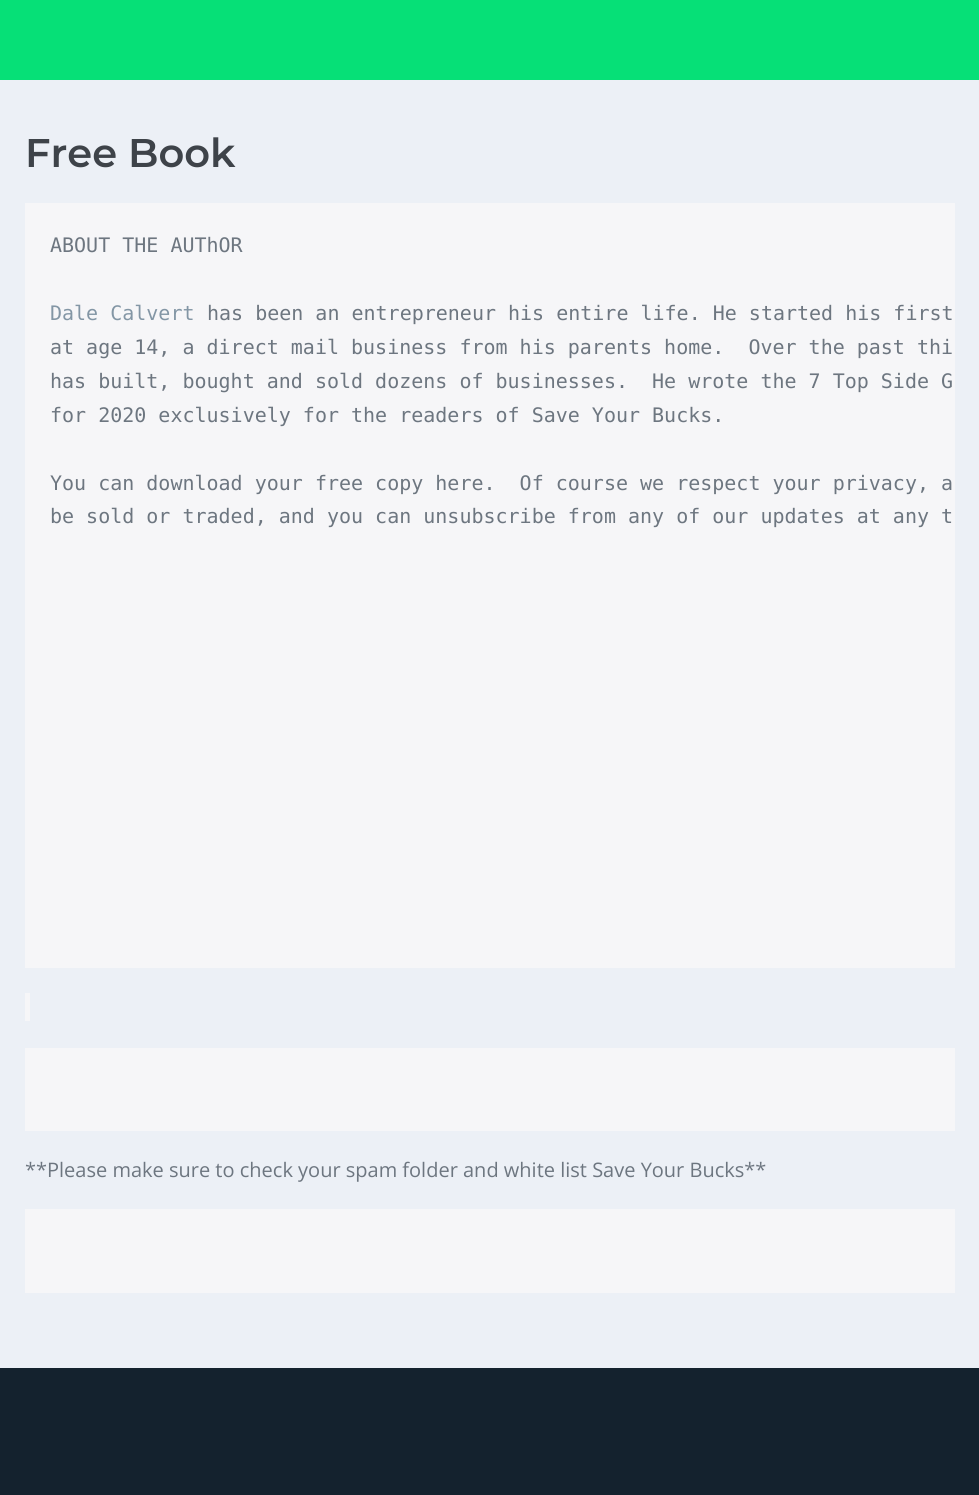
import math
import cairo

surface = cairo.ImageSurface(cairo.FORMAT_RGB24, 979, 1495)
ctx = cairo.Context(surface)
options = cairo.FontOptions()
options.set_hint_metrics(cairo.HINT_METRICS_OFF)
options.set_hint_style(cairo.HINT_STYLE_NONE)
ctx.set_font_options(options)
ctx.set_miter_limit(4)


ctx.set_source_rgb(0.925, 0.941, 0.961)
ctx.paint()
ctx.set_source_rgb(0.024, 0.878, 0.467)
ctx.rectangle(0, 0, 979, 80)
ctx.fill()
ctx.select_font_face("Montserrat SemiBold")
ctx.set_font_size(40)
ctx.set_source_rgb(0.243, 0.263, 0.286)
ctx.move_to(25, 167)
ctx.show_text("Free Book")
ctx.set_source_rgb(0.961, 0.961, 0.969)
ctx.rectangle(25, 203, 930, 765)
ctx.fill()
ctx.select_font_face("DejaVu Sans Mono")
ctx.set_font_size(20)
ctx.set_source_rgb(0.427, 0.463, 0.502)
ctx.move_to(50, 252)
ctx.show_text("ABOUT THE AUThOR")
ctx.set_source_rgb(0.514, 0.588, 0.647)
ctx.move_to(50, 320)
ctx.show_text("Dale Calvert")
ctx.set_source_rgb(0.427, 0.463, 0.502)
ctx.move_to(207, 320)
ctx.show_text("has been an entrepreneur his entire life. He started his first")
ctx.move_to(50, 354)
ctx.show_text("at age 14, a direct mail business from his parents home.  Over the past thi")
ctx.move_to(50, 388)
ctx.show_text("has built, bought and sold dozens of businesses.  He wrote the 7 Top Side G")
ctx.move_to(50, 422)
ctx.show_text("for 2020 exclusively for the readers of Save Your Bucks.")
ctx.move_to(50, 490)
ctx.show_text("You can download your free copy here.  Of course we respect your privacy, a")
ctx.move_to(50, 523)
ctx.show_text("be sold or traded, and you can unsubscribe from any of our updates at any t")
ctx.set_source_rgb(0.961, 0.961, 0.969)
ctx.rectangle(25, 993, 5, 28)
ctx.fill()
ctx.rectangle(25, 1048, 930, 83)
ctx.fill()
ctx.select_font_face("Open Sans")
ctx.set_source_rgb(0.427, 0.463, 0.502)
ctx.move_to(25, 1177)
ctx.show_text("**Please make sure to check your spam folder and white list Save Your Bucks**")
ctx.set_source_rgb(0.961, 0.961, 0.969)
ctx.rectangle(25, 1209, 930, 84)
ctx.fill()
ctx.set_source_rgb(0.082, 0.133, 0.18)
ctx.rectangle(0, 1368, 979, 127)
ctx.fill()
surface.write_to_png("page.png")
